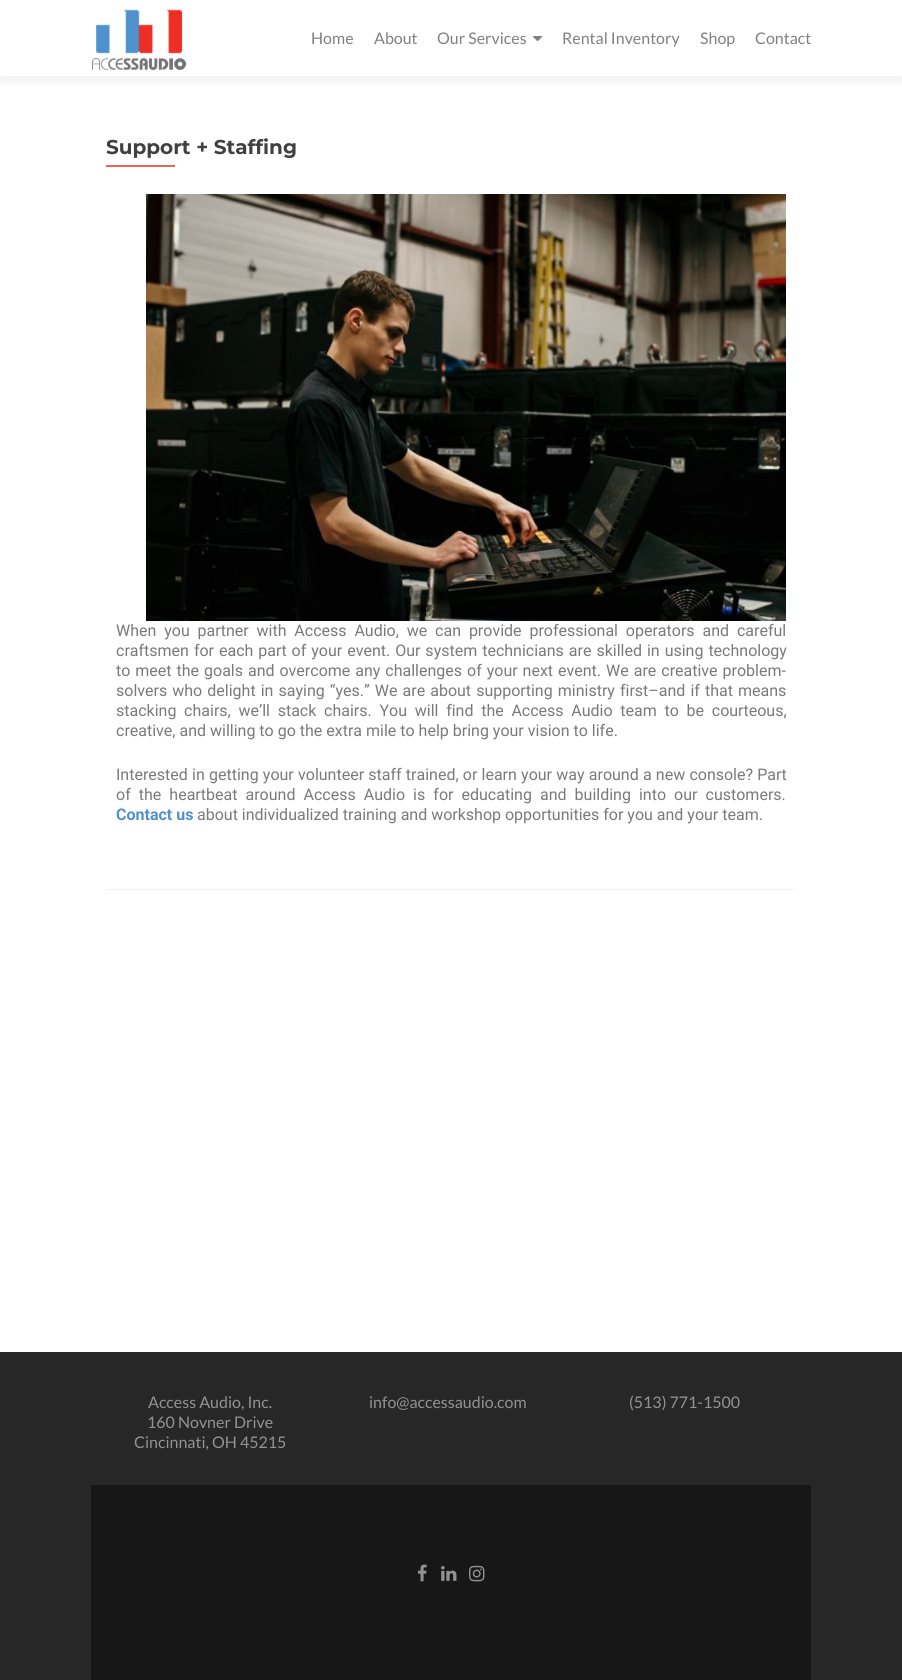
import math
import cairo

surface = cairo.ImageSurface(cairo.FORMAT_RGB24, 902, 1680)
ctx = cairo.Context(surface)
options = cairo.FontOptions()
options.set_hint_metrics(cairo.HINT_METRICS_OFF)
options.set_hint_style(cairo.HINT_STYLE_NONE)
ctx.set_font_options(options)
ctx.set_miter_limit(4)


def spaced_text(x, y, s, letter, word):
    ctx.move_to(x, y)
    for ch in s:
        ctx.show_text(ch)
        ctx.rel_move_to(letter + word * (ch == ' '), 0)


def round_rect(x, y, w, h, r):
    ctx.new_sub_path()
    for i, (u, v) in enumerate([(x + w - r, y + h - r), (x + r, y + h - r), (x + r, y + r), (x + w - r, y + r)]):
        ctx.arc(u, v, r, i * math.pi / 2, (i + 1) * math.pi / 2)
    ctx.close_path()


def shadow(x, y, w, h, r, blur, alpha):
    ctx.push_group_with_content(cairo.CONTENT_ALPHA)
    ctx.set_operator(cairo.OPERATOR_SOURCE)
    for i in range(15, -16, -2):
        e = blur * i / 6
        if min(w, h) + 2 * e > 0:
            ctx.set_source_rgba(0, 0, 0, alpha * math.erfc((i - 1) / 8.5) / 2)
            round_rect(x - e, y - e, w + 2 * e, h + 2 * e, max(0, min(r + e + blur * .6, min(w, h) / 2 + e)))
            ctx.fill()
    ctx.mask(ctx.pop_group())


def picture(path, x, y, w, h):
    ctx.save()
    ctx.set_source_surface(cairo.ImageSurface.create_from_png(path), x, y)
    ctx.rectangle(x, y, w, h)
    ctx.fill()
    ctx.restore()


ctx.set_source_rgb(1, 1, 1)
ctx.paint()
ctx.save()
ctx.rectangle(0, 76, 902, 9)
ctx.clip()
ctx.set_source_rgb(0.196, 0.196, 0.196)
shadow(0, 5, 902, 76, 0, 5.5, 0.08)
ctx.restore()
picture("img1.png", 91, 9, 96, 62)
ctx.select_font_face("Lato")
ctx.set_font_size(16)
ctx.set_source_rgb(0.502, 0.502, 0.502)
ctx.move_to(311, 44)
ctx.show_text("Home")
ctx.move_to(374, 44)
ctx.show_text("About")
ctx.move_to(437, 44)
ctx.show_text("Our Services")
picture("img2.png", 533, 36, 10, 6)
ctx.move_to(562, 44)
ctx.show_text("Rental Inventory")
ctx.move_to(700, 44)
ctx.show_text("Shop")
ctx.move_to(755, 44)
ctx.show_text("Contact")
ctx.set_source_rgb(0.949, 0.949, 0.949)
ctx.rectangle(106, 889, 690, 1)
ctx.fill()
ctx.select_font_face("Montserrat Thin")
ctx.set_font_size(20)
ctx.set_source_rgb(0.251, 0.251, 0.251)
ctx.move_to(106, 154)
ctx.show_text("Support + Staffing")
ctx.set_source_rgb(0.914, 0.4, 0.337)
ctx.rectangle(106, 165, 69, 2)
ctx.fill()
picture("img3.png", 146, 194, 640, 427)
ctx.select_font_face("Roboto")
ctx.set_font_size(16)
ctx.set_source_rgb(0.478, 0.478, 0.478)
spaced_text(116, 636, "When you partner with Access Audio, we can provide professional operators and careful", 0, 3.9)
spaced_text(116, 656, "craftsmen for each part of your event. Our system technicians are skilled in using technology", 0, 1)
spaced_text(116, 676, "to meet the goals and overcome any challenges of your next event. We are creative problem-", 0, 1)
spaced_text(116, 696, "solvers who delight in saying “yes.” We are about supporting ministry first–and if that means", 0, 1.1)
spaced_text(116, 716, "stacking chairs, we’ll stack chairs. You will find the Access Audio team to be courteous,", 0, 3.75)
ctx.move_to(116, 736)
ctx.show_text("creative, and willing to go the extra mile to help bring your vision to life.")
spaced_text(116, 780, "Interested in getting your volunteer staff trained, or learn your way around a new console? Part", 0, 0.25)
spaced_text(116, 800, "of the heartbeat around Access Audio is for educating and building into our customers.", 0, 4.1)
ctx.select_font_face("Roboto", cairo.FONT_SLANT_NORMAL, cairo.FONT_WEIGHT_BOLD)
ctx.set_source_rgb(0.31, 0.569, 0.804)
ctx.move_to(116, 820)
ctx.show_text("Contact us")
ctx.select_font_face("Roboto")
ctx.set_source_rgb(0.478, 0.478, 0.478)
ctx.move_to(197, 820)
ctx.show_text("about individualized training and workshop opportunities for you and your team.")
ctx.set_source_rgb(0.153, 0.153, 0.153)
ctx.rectangle(0, 1352, 902, 328)
ctx.fill()
ctx.select_font_face("Lato")
ctx.set_source_rgb(0.576, 0.576, 0.576)
ctx.move_to(148, 1408)
ctx.show_text("Access Audio, Inc.")
ctx.move_to(147, 1428)
ctx.show_text("160 Novner Drive")
ctx.move_to(134, 1448)
ctx.show_text("Cincinnati, OH 45215")
ctx.move_to(369, 1408)
ctx.show_text("info@accessaudio.com")
ctx.move_to(629, 1408)
ctx.show_text("(513) 771-1500")
ctx.set_source_rgb(0.09, 0.09, 0.09)
ctx.rectangle(91, 1485, 720, 195)
ctx.fill()
picture("img4.png", 417, 1564, 10, 18)
picture("img5.png", 441, 1566, 16, 15)
picture("img6.png", 469, 1565, 16, 17)
surface.write_to_png("page.png")
